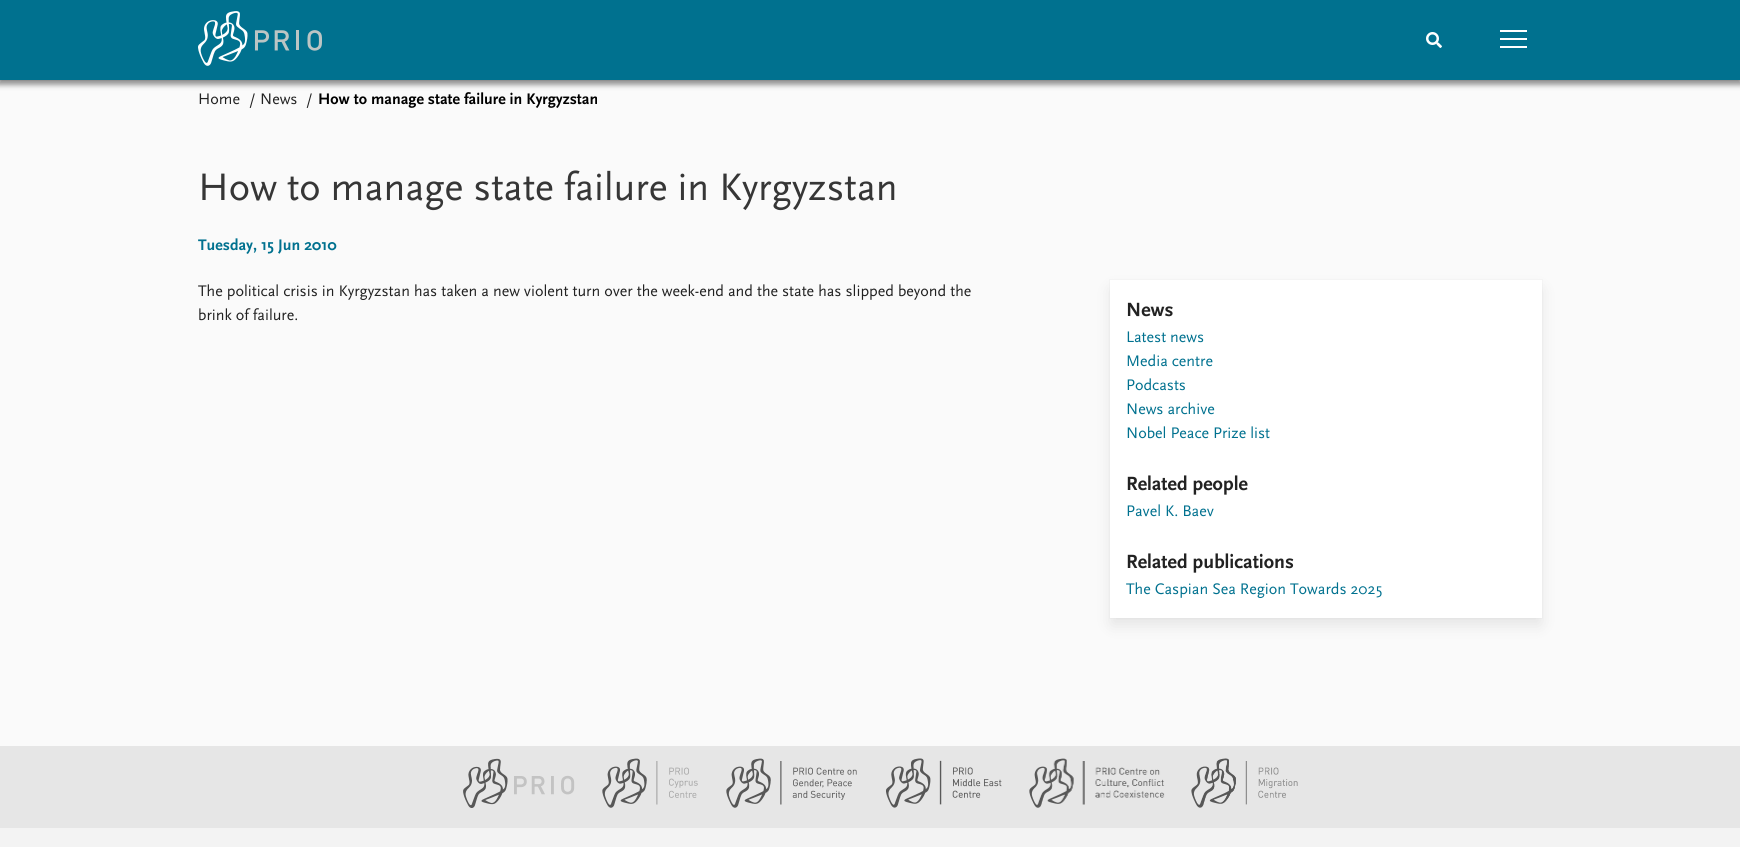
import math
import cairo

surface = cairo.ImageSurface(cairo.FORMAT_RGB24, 1740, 847)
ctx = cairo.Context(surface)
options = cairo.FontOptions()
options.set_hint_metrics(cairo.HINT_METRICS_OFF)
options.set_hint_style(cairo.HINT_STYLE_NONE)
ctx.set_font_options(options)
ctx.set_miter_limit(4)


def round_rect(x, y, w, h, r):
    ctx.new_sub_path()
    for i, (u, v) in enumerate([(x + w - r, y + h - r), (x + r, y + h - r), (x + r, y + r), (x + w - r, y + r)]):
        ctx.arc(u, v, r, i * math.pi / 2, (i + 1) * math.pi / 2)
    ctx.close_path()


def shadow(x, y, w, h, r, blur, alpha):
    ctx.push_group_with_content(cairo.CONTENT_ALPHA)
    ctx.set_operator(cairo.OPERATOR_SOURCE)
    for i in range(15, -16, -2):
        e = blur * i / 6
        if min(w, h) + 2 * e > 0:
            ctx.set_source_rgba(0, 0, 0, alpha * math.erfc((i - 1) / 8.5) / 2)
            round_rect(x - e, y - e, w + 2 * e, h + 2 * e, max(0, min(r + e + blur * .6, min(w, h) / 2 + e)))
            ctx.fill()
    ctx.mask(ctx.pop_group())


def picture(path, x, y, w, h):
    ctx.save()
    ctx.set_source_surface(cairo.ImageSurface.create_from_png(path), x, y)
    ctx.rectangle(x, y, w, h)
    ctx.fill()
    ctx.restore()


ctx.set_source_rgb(0.98, 0.98, 0.98)
ctx.paint()
ctx.rectangle(-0.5, -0.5, 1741, 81)
ctx.set_source_rgb(0.906, 0.906, 0.906)
ctx.set_line_width(1)
ctx.stroke()
ctx.set_source_rgb(0.196, 0.196, 0.196)
shadow(-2, 2, 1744, 83, 0, 2.5, 0.5)
ctx.set_source_rgb(0, 0.443, 0.561)
ctx.rectangle(0, 0, 1740, 80)
ctx.fill()
picture("img1.png", 198, 11, 124, 55)
picture("img2.png", 1426, 32, 16, 16)
ctx.set_source_rgb(1, 1, 1)
ctx.rectangle(1500, 30, 27, 2)
ctx.fill()
ctx.rectangle(1500, 38, 27, 2)
ctx.fill()
ctx.rectangle(1500, 46, 27, 2)
ctx.fill()
ctx.select_font_face("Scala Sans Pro")
ctx.set_font_size(16)
ctx.set_source_rgb(0.133, 0.133, 0.133)
ctx.move_to(198, 104)
ctx.show_text("Home")
ctx.move_to(249, 104)
ctx.show_text("/")
ctx.move_to(260, 104)
ctx.show_text("News")
ctx.move_to(306, 104)
ctx.show_text("/")
ctx.select_font_face("Scala Sans Pro", cairo.FONT_SLANT_NORMAL, cairo.FONT_WEIGHT_BOLD)
ctx.set_source_rgb(0, 0, 0)
ctx.move_to(318, 104)
ctx.show_text("How to manage state failure in Kyrgyzstan")
ctx.select_font_face("Scala Sans Pro")
ctx.set_font_size(40)
ctx.set_source_rgb(0.212, 0.212, 0.212)
ctx.move_to(198, 200)
ctx.show_text("How to manage state failure in Kyrgyzstan")
ctx.select_font_face("Scala Sans Pro", cairo.FONT_SLANT_NORMAL, cairo.FONT_WEIGHT_BOLD)
ctx.set_font_size(16)
ctx.set_source_rgb(0, 0.443, 0.561)
ctx.move_to(198, 250)
ctx.show_text("Tuesday, 15 Jun 2010")
ctx.select_font_face("Scala Sans Pro")
ctx.set_source_rgb(0.133, 0.133, 0.133)
ctx.move_to(198, 296)
ctx.show_text("The political crisis in Kyrgyzstan has taken a new violent turn over the week-end and the state has slipped beyond the")
ctx.move_to(198, 320)
ctx.show_text("brink of failure.")
ctx.rectangle(1109.5, 279.5, 433, 339)
ctx.set_source_rgb(0.961, 0.961, 0.961)
ctx.stroke()
ctx.set_source_rgb(0.039, 0.039, 0.039)
shadow(1112, 290, 428, 334, 0, 8, 0.1)
ctx.set_source_rgb(1, 1, 1)
ctx.rectangle(1110, 280, 432, 338)
ctx.fill()
ctx.select_font_face("Scala Sans Pro", cairo.FONT_SLANT_NORMAL, cairo.FONT_WEIGHT_BOLD)
ctx.set_font_size(20)
ctx.set_source_rgb(0.133, 0.133, 0.133)
ctx.move_to(1126, 316)
ctx.show_text("News")
ctx.select_font_face("Scala Sans Pro")
ctx.set_font_size(16)
ctx.set_source_rgb(0, 0.443, 0.561)
ctx.move_to(1126, 342)
ctx.show_text("Latest news")
ctx.move_to(1126, 366)
ctx.show_text("Media centre")
ctx.move_to(1126, 390)
ctx.show_text("Podcasts")
ctx.move_to(1126, 414)
ctx.show_text("News archive")
ctx.move_to(1126, 438)
ctx.show_text("Nobel Peace Prize list")
ctx.select_font_face("Scala Sans Pro", cairo.FONT_SLANT_NORMAL, cairo.FONT_WEIGHT_BOLD)
ctx.set_font_size(20)
ctx.set_source_rgb(0.133, 0.133, 0.133)
ctx.move_to(1126, 490)
ctx.show_text("Related people")
ctx.select_font_face("Scala Sans Pro")
ctx.set_font_size(16)
ctx.set_source_rgb(0, 0.443, 0.561)
ctx.move_to(1126, 516)
ctx.show_text("Pavel K. Baev")
ctx.select_font_face("Scala Sans Pro", cairo.FONT_SLANT_NORMAL, cairo.FONT_WEIGHT_BOLD)
ctx.set_font_size(20)
ctx.set_source_rgb(0.133, 0.133, 0.133)
ctx.move_to(1126, 568)
ctx.show_text("Related publications")
ctx.select_font_face("Scala Sans Pro")
ctx.set_font_size(16)
ctx.set_source_rgb(0, 0.443, 0.561)
ctx.move_to(1126, 594)
ctx.show_text("The Caspian Sea Region Towards 2025")
ctx.set_source_rgb(0.902, 0.902, 0.902)
ctx.rectangle(0, 746, 1740, 82)
ctx.fill()
picture("img3.png", 463, 758, 112, 50)
picture("img4.png", 602, 758, 96, 50)
picture("img5.png", 726, 758, 131, 50)
picture("img6.png", 886, 758, 116, 50)
picture("img7.png", 1029, 758, 136, 50)
picture("img8.png", 1191, 758, 107, 50)
ctx.set_source_rgb(0.953, 0.953, 0.953)
ctx.rectangle(0, 828, 1740, 19)
ctx.fill()
surface.write_to_png("page.png")
